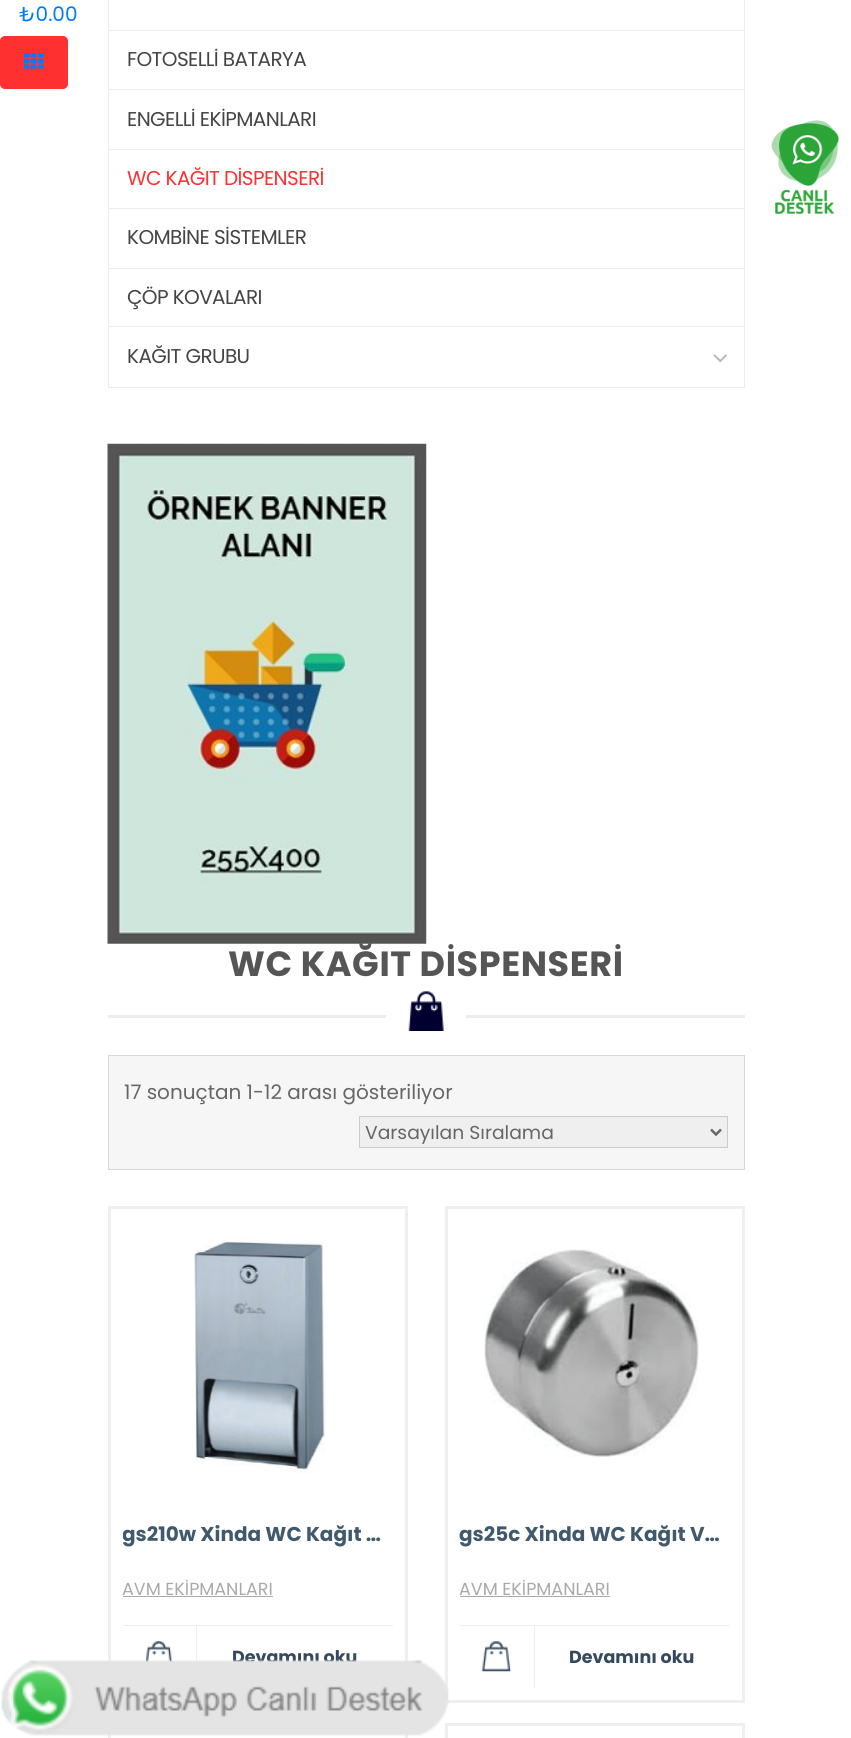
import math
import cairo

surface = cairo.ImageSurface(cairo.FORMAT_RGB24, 851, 1738)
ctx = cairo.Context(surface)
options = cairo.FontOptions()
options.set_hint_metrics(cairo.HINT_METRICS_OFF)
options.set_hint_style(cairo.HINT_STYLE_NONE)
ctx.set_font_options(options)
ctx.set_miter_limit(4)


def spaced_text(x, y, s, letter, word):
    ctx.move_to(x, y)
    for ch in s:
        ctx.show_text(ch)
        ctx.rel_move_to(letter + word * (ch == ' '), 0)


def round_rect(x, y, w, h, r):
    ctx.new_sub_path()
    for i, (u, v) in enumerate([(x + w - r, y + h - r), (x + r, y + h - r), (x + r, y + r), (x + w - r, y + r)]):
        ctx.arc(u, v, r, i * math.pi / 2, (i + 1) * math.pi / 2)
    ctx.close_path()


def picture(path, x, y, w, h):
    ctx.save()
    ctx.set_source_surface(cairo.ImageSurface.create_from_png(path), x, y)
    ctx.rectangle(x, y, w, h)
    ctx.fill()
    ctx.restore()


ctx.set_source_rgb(1, 1, 1)
ctx.paint()
ctx.select_font_face("Poppins")
ctx.set_font_size(20)
ctx.set_source_rgb(0, 0.482, 1)
ctx.move_to(19, 21)
ctx.show_text("₺0.00")
ctx.set_source_rgb(1, 0.188, 0.188)
round_rect(0.5, 36.5, 67, 52, 4.5)
ctx.fill_preserve()
ctx.set_line_width(1)
ctx.stroke()
picture("img1.png", 23, 53, 21, 16)
picture("img2.png", 771, 120, 68, 94)
ctx.rectangle(109.5, 1207.5, 297, 494)
ctx.set_source_rgb(0.937, 0.937, 0.937)
ctx.set_line_width(3)
ctx.stroke()
picture("img8.png", 145, 1641, 28, 21)
ctx.rectangle(196, 1626, 1, 36)
ctx.fill()
ctx.select_font_face("Poppins", cairo.FONT_SLANT_NORMAL, cairo.FONT_WEIGHT_BOLD)
ctx.set_font_size(17.5)
ctx.set_source_rgb(0.204, 0.286, 0.369)
ctx.move_to(232, 1663)
ctx.show_text("Devamını oku")
ctx.rectangle(446.5, 1207.5, 297, 494)
ctx.set_source_rgb(0.937, 0.937, 0.937)
ctx.stroke()
ctx.rectangle(109.5, 1724.5, 297, 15)
ctx.stroke()
ctx.rectangle(446.5, 1724.5, 297, 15)
ctx.stroke()
picture("img3.png", 1, 1659, 448, 77)
ctx.rectangle(108.5, -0.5, 636, 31)
ctx.set_source_rgb(0.925, 0.925, 0.925)
ctx.set_line_width(1)
ctx.stroke()
ctx.rectangle(108.5, 30.5, 636, 59)
ctx.stroke()
ctx.select_font_face("Poppins")
ctx.set_font_size(20)
ctx.set_source_rgb(0.267, 0.267, 0.267)
spaced_text(127, 66, "FOTOSELLİ BATARYA", -0.6, 0)
ctx.rectangle(108.5, 89.5, 636, 60)
ctx.set_source_rgb(0.925, 0.925, 0.925)
ctx.stroke()
ctx.set_source_rgb(0.267, 0.267, 0.267)
spaced_text(127, 126, "ENGELLİ EKİPMANLARI", -0.6, 0)
ctx.rectangle(108.5, 149.5, 636, 59)
ctx.set_source_rgb(0.925, 0.925, 0.925)
ctx.stroke()
ctx.set_source_rgb(1, 0.188, 0.188)
spaced_text(127, 185, "WC KAĞIT DİSPENSERİ", -0.6, 0)
ctx.rectangle(108.5, 208.5, 636, 60)
ctx.set_source_rgb(0.925, 0.925, 0.925)
ctx.stroke()
ctx.set_source_rgb(0.267, 0.267, 0.267)
spaced_text(127, 244, "KOMBİNE SİSTEMLER", -0.6, 0)
ctx.rectangle(108.5, 268.5, 636, 59)
ctx.set_source_rgb(0.925, 0.925, 0.925)
ctx.stroke()
ctx.set_source_rgb(0.267, 0.267, 0.267)
spaced_text(127, 304, "ÇÖP KOVALARI", -0.6, 0)
ctx.set_source_rgb(1, 1, 1)
ctx.rectangle(109, 327, 635, 1)
ctx.fill()
ctx.rectangle(108.5, 326.5, 636, 61)
ctx.set_source_rgb(0.925, 0.925, 0.925)
ctx.stroke()
ctx.set_source_rgb(0.267, 0.267, 0.267)
spaced_text(127, 363, "KAĞIT GRUBU", -0.6, 0)
picture("img4.png", 713, 354, 14, 9)
picture("img5.png", 107, 443, 320, 501)
ctx.select_font_face("Poppins", cairo.FONT_SLANT_NORMAL, cairo.FONT_WEIGHT_BOLD)
ctx.set_font_size(35)
ctx.set_source_rgb(0.333, 0.333, 0.333)
spaced_text(228, 976, "WC KAĞIT DİSPENSERİ", 0.6, 0)
ctx.set_source_rgb(0.922, 0.922, 0.922)
ctx.rectangle(108, 1015, 637, 3)
ctx.fill()
ctx.set_source_rgb(1, 1, 1)
ctx.rectangle(386, 1015, 80, 3)
ctx.fill()
picture("img6.png", 408, 991, 36, 40)
ctx.set_source_rgb(0.961, 0.961, 0.961)
ctx.rectangle(108.5, 1055.5, 636, 114)
ctx.fill_preserve()
ctx.set_source_rgb(0.843, 0.843, 0.843)
ctx.stroke()
ctx.select_font_face("Poppins")
ctx.set_font_size(20)
ctx.set_source_rgb(0.4, 0.4, 0.4)
ctx.move_to(124, 1099)
ctx.show_text("17 sonuçtan 1-12 arası gösteriliyor")
ctx.set_source_rgb(0.937, 0.937, 0.937)
ctx.rectangle(359.5, 1116.5, 368, 31)
ctx.fill_preserve()
ctx.set_source_rgb(0.8, 0.8, 0.8)
ctx.stroke()
ctx.new_path()
ctx.move_to(711, 1129.5)
ctx.line_to(716, 1134.5)
ctx.line_to(721, 1129.5)
ctx.set_source_rgb(0.4, 0.4, 0.4)
ctx.set_line_width(2.5)
ctx.stroke()
ctx.set_font_size(18.75)
ctx.move_to(365, 1139)
ctx.show_text("Varsayılan Sıralama")
picture("img7.png", 194, 1239, 132, 234)
ctx.save()
ctx.rectangle(123, 1511, 270, 45)
ctx.clip()
ctx.select_font_face("Poppins", cairo.FONT_SLANT_NORMAL, cairo.FONT_WEIGHT_BOLD)
ctx.set_font_size(20)
ctx.set_source_rgb(0.255, 0.349, 0.427)
ctx.move_to(122, 1541)
ctx.show_text("gs210w Xinda WC Kağıt …")
ctx.restore()
ctx.set_font_size(17.5)
ctx.set_source_rgb(0.667, 0.667, 0.667)
ctx.move_to(122, 1595)
ctx.show_text("AVM EKİPMANLARI")
ctx.rectangle(123, 1596, 150, 1)
ctx.fill()
ctx.set_source_rgb(0.937, 0.937, 0.937)
ctx.rectangle(123, 1625, 270, 1)
ctx.fill()
picture("img9.png", 484, 1249, 215, 208)
ctx.select_font_face("Poppins", cairo.FONT_SLANT_NORMAL, cairo.FONT_WEIGHT_BOLD)
ctx.set_font_size(20)
ctx.set_source_rgb(0.255, 0.349, 0.427)
ctx.move_to(459, 1541)
ctx.show_text("gs25c Xinda WC Kağıt V…")
ctx.select_font_face("Poppins")
ctx.set_font_size(17.5)
ctx.set_source_rgb(0.667, 0.667, 0.667)
ctx.move_to(459, 1595)
ctx.show_text("AVM EKİPMANLARI")
ctx.rectangle(460, 1596, 150, 1)
ctx.fill()
ctx.set_source_rgb(0.937, 0.937, 0.937)
ctx.rectangle(460, 1625, 270, 1)
ctx.fill()
picture("img10.png", 481, 1641, 31, 31)
ctx.rectangle(534, 1626, 1, 62)
ctx.fill()
ctx.select_font_face("Poppins", cairo.FONT_SLANT_NORMAL, cairo.FONT_WEIGHT_BOLD)
ctx.set_source_rgb(0.204, 0.286, 0.369)
ctx.move_to(569, 1663)
ctx.show_text("Devamını oku")
surface.write_to_png("page.png")
